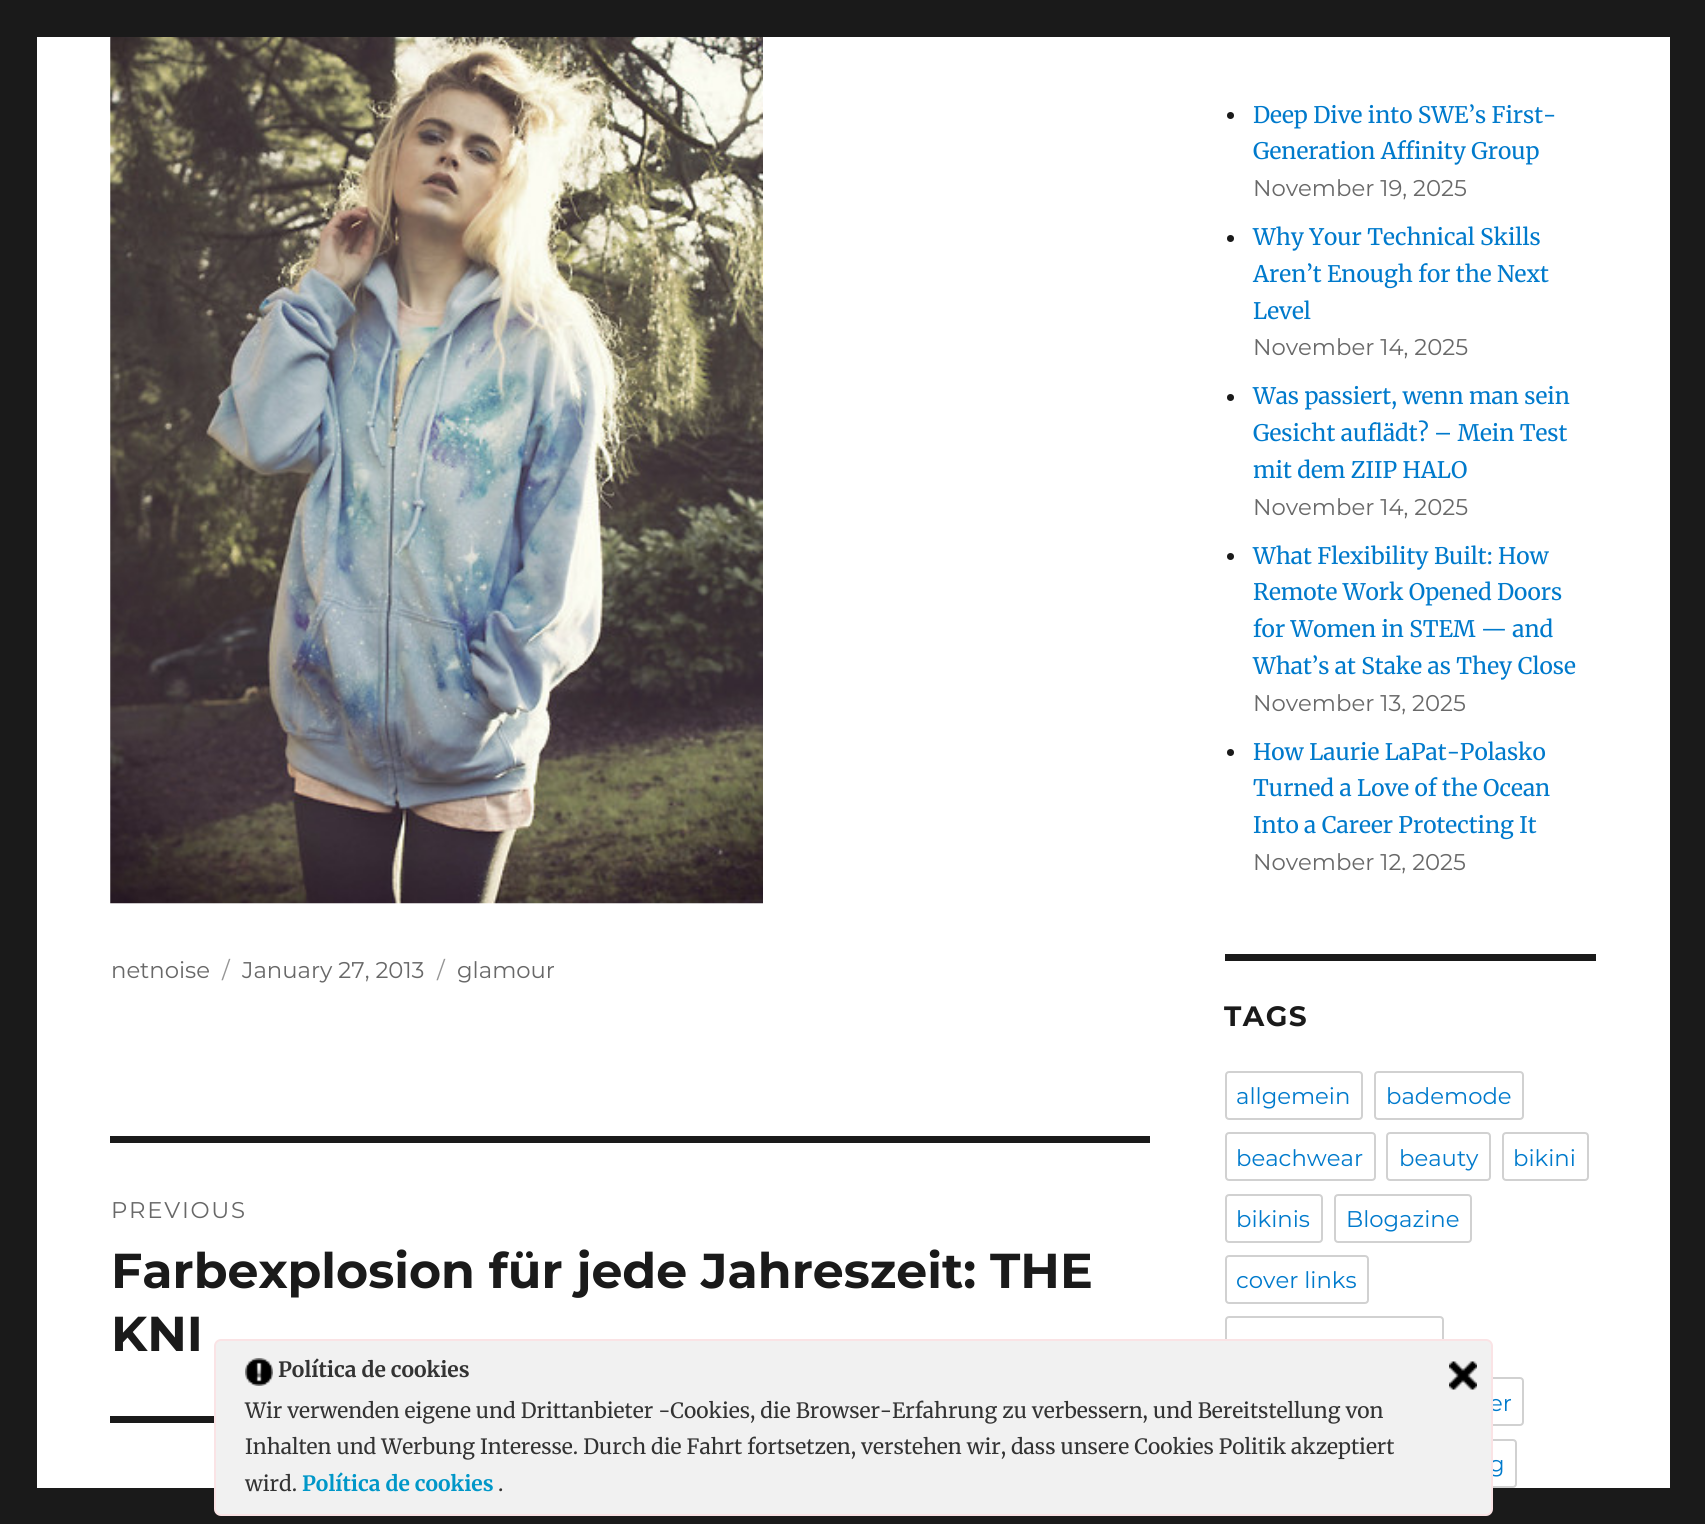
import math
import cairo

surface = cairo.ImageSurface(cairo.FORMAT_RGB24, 1705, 1524)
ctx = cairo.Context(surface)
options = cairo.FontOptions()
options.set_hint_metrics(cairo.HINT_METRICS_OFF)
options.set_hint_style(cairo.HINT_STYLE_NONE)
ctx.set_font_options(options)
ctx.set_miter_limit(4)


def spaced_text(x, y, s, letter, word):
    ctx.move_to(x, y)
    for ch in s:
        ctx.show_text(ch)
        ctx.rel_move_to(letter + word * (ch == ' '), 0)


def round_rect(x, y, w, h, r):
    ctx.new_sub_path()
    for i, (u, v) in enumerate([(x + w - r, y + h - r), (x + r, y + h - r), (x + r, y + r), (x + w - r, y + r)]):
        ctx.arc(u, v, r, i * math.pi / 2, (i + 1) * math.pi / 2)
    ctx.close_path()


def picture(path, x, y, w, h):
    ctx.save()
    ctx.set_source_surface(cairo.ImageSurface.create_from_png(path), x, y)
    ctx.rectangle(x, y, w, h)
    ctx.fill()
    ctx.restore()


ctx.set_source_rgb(0.102, 0.102, 0.102)
ctx.paint()
ctx.set_source_rgb(1, 1, 1)
ctx.rectangle(37, 37, 1633, 1451)
ctx.fill()
picture("img1.png", 110, 37, 653, 867)
ctx.select_font_face("Montserrat")
ctx.set_font_size(22.75)
ctx.set_source_rgb(0.408, 0.408, 0.408)
ctx.move_to(111, 978)
ctx.show_text("netnoise")
ctx.set_source_rgb(0.584, 0.584, 0.584)
ctx.move_to(222, 978)
ctx.show_text("/")
ctx.set_source_rgb(0.408, 0.408, 0.408)
ctx.move_to(242, 978)
ctx.show_text("January 27, 2013")
ctx.set_source_rgb(0.584, 0.584, 0.584)
ctx.move_to(437, 978)
ctx.show_text("/")
ctx.set_source_rgb(0.408, 0.408, 0.408)
ctx.move_to(457, 978)
ctx.show_text("glamour")
ctx.set_source_rgb(0.102, 0.102, 0.102)
ctx.rectangle(110, 1136, 1040, 7)
ctx.fill()
ctx.set_source_rgb(0.408, 0.408, 0.408)
spaced_text(111, 1218, "PREVIOUS", 1.75, 0)
ctx.select_font_face("Montserrat", cairo.FONT_SLANT_NORMAL, cairo.FONT_WEIGHT_BOLD)
ctx.set_font_size(49)
ctx.set_source_rgb(0.102, 0.102, 0.102)
ctx.move_to(111, 1288)
ctx.show_text("Farbexplosion für jede Jahreszeit: THE")
ctx.move_to(111, 1351)
ctx.show_text("KNI")
ctx.rectangle(110, 1416, 104, 7)
ctx.fill()
ctx.arc(1230.5, 115.5, 3.5, 0, 2 * math.pi)
ctx.fill()
ctx.select_font_face("Merriweather")
ctx.set_font_size(22.75)
ctx.set_source_rgb(0, 0.478, 0.8)
ctx.move_to(1253, 123)
ctx.show_text("Deep Dive into SWE’s First-")
ctx.move_to(1253, 159)
ctx.show_text("Generation Affinity Group")
ctx.select_font_face("Montserrat")
ctx.set_source_rgb(0.408, 0.408, 0.408)
ctx.move_to(1253, 196)
ctx.show_text("November 19, 2025")
ctx.set_source_rgb(0.102, 0.102, 0.102)
ctx.new_path()
ctx.arc(1230.5, 238.5, 3.5, 0, 2 * math.pi)
ctx.fill()
ctx.select_font_face("Merriweather")
ctx.set_source_rgb(0, 0.478, 0.8)
ctx.move_to(1253, 245)
ctx.show_text("Why Your Technical Skills")
ctx.move_to(1253, 282)
ctx.show_text("Aren’t Enough for the Next")
ctx.move_to(1253, 319)
ctx.show_text("Level")
ctx.select_font_face("Montserrat")
ctx.set_source_rgb(0.408, 0.408, 0.408)
ctx.move_to(1253, 355)
ctx.show_text("November 14, 2025")
ctx.set_source_rgb(0.102, 0.102, 0.102)
ctx.new_path()
ctx.arc(1230.5, 397.5, 3.5, 0, 2 * math.pi)
ctx.fill()
ctx.select_font_face("Merriweather")
ctx.set_source_rgb(0, 0.478, 0.8)
ctx.move_to(1253, 404)
ctx.show_text("Was passiert, wenn man sein")
ctx.move_to(1253, 441)
ctx.show_text("Gesicht auflädt? – Mein Test")
ctx.move_to(1253, 478)
ctx.show_text("mit dem ZIIP HALO")
ctx.select_font_face("Montserrat")
ctx.set_source_rgb(0.408, 0.408, 0.408)
ctx.move_to(1253, 515)
ctx.show_text("November 14, 2025")
ctx.set_source_rgb(0.102, 0.102, 0.102)
ctx.new_path()
ctx.arc(1230.5, 556.5, 3.5, 0, 2 * math.pi)
ctx.fill()
ctx.select_font_face("Merriweather")
ctx.set_source_rgb(0, 0.478, 0.8)
ctx.move_to(1253, 564)
ctx.show_text("What Flexibility Built: How")
ctx.move_to(1253, 600)
ctx.show_text("Remote Work Opened Doors")
ctx.move_to(1253, 637)
ctx.show_text("for Women in STEM — and")
ctx.move_to(1253, 674)
ctx.show_text("What’s at Stake as They Close")
ctx.select_font_face("Montserrat")
ctx.set_source_rgb(0.408, 0.408, 0.408)
ctx.move_to(1253, 711)
ctx.show_text("November 13, 2025")
ctx.set_source_rgb(0.102, 0.102, 0.102)
ctx.new_path()
ctx.arc(1230.5, 752.5, 3.5, 0, 2 * math.pi)
ctx.fill()
ctx.select_font_face("Merriweather")
ctx.set_source_rgb(0, 0.478, 0.8)
ctx.move_to(1253, 760)
ctx.show_text("How Laurie LaPat-Polasko")
ctx.move_to(1253, 796)
ctx.show_text("Turned a Love of the Ocean")
ctx.move_to(1253, 833)
ctx.show_text("Into a Career Protecting It")
ctx.select_font_face("Montserrat")
ctx.set_source_rgb(0.408, 0.408, 0.408)
ctx.move_to(1253, 870)
ctx.show_text("November 12, 2025")
ctx.set_source_rgb(0.102, 0.102, 0.102)
ctx.rectangle(1225, 954, 371, 7)
ctx.fill()
ctx.select_font_face("Montserrat", cairo.FONT_SLANT_NORMAL, cairo.FONT_WEIGHT_BOLD)
ctx.set_font_size(28)
spaced_text(1224, 1026, "TAGS", 1.5, 0)
round_rect(1226, 1072, 136, 47, 3)
ctx.set_source_rgb(0.82, 0.82, 0.82)
ctx.stroke()
ctx.select_font_face("Montserrat")
ctx.set_font_size(22.75)
ctx.set_source_rgb(0, 0.478, 0.8)
ctx.move_to(1236, 1104)
ctx.show_text("allgemein")
round_rect(1375, 1072, 148, 47, 3)
ctx.set_source_rgb(0.82, 0.82, 0.82)
ctx.stroke()
ctx.set_source_rgb(0, 0.478, 0.8)
ctx.move_to(1386, 1104)
ctx.show_text("bademode")
round_rect(1226, 1133, 149, 47, 3)
ctx.set_source_rgb(0.82, 0.82, 0.82)
ctx.stroke()
ctx.set_source_rgb(0, 0.478, 0.8)
ctx.move_to(1236, 1166)
ctx.show_text("beachwear")
round_rect(1387, 1133, 103, 47, 3)
ctx.set_source_rgb(0.82, 0.82, 0.82)
ctx.stroke()
ctx.set_source_rgb(0, 0.478, 0.8)
ctx.move_to(1399, 1166)
ctx.show_text("beauty")
round_rect(1503, 1133, 85, 47, 3)
ctx.set_source_rgb(0.82, 0.82, 0.82)
ctx.stroke()
ctx.set_source_rgb(0, 0.478, 0.8)
ctx.move_to(1513, 1166)
ctx.show_text("bikini")
round_rect(1226, 1195, 96, 47, 3)
ctx.set_source_rgb(0.82, 0.82, 0.82)
ctx.stroke()
ctx.set_source_rgb(0, 0.478, 0.8)
ctx.move_to(1236, 1227)
ctx.show_text("bikinis")
round_rect(1335, 1195, 136, 47, 3)
ctx.set_source_rgb(0.82, 0.82, 0.82)
ctx.stroke()
ctx.set_source_rgb(0, 0.478, 0.8)
ctx.move_to(1346, 1227)
ctx.show_text("Blogazine")
round_rect(1226, 1256, 142, 47, 3)
ctx.set_source_rgb(0.82, 0.82, 0.82)
ctx.stroke()
ctx.set_source_rgb(0, 0.478, 0.8)
ctx.move_to(1236, 1288)
ctx.show_text("cover links")
round_rect(1226, 1317, 217, 47, 3)
ctx.set_source_rgb(0.82, 0.82, 0.82)
ctx.stroke()
round_rect(1399, 1378, 124, 47, 3)
ctx.stroke()
ctx.set_source_rgb(0, 0.478, 0.8)
ctx.move_to(1489, 1411)
ctx.show_text("er")
round_rect(1343, 1440, 173, 47, 3)
ctx.set_source_rgb(0.82, 0.82, 0.82)
ctx.stroke()
ctx.set_source_rgb(0, 0.478, 0.8)
ctx.move_to(1489, 1472)
ctx.show_text("g")
ctx.set_source_rgb(0.945, 0.945, 0.945)
round_rect(215, 1340, 1277, 175, 6)
ctx.fill_preserve()
ctx.set_source_rgb(0.98, 0.89, 0.898)
ctx.stroke()
picture("img2.png", 245, 1358, 28, 28)
ctx.select_font_face("Merriweather", cairo.FONT_SLANT_NORMAL, cairo.FONT_WEIGHT_BOLD)
ctx.set_font_size(21)
ctx.set_source_rgb(0.2, 0.2, 0.2)
ctx.move_to(278, 1377)
ctx.show_text("Política de cookies")
picture("img3.png", 1449, 1361, 28, 29)
ctx.select_font_face("Merriweather")
ctx.move_to(245, 1418)
ctx.show_text("Wir verwenden eigene und Drittanbieter -Cookies, die Browser-Erfahrung zu verbessern, und Bereitstellung von")
ctx.move_to(245, 1454)
ctx.show_text("Inhalten und Werbung Interesse. Durch die Fahrt fortsetzen, verstehen wir, dass unsere Cookies Politik akzeptiert")
ctx.move_to(245, 1491)
ctx.show_text("wird.")
ctx.select_font_face("Merriweather", cairo.FONT_SLANT_NORMAL, cairo.FONT_WEIGHT_BOLD)
ctx.set_source_rgb(0, 0.592, 0.784)
ctx.move_to(302, 1491)
ctx.show_text("Política de cookies")
ctx.select_font_face("Merriweather")
ctx.set_source_rgb(0.2, 0.2, 0.2)
ctx.move_to(498, 1491)
ctx.show_text(".")
surface.write_to_png("page.png")
